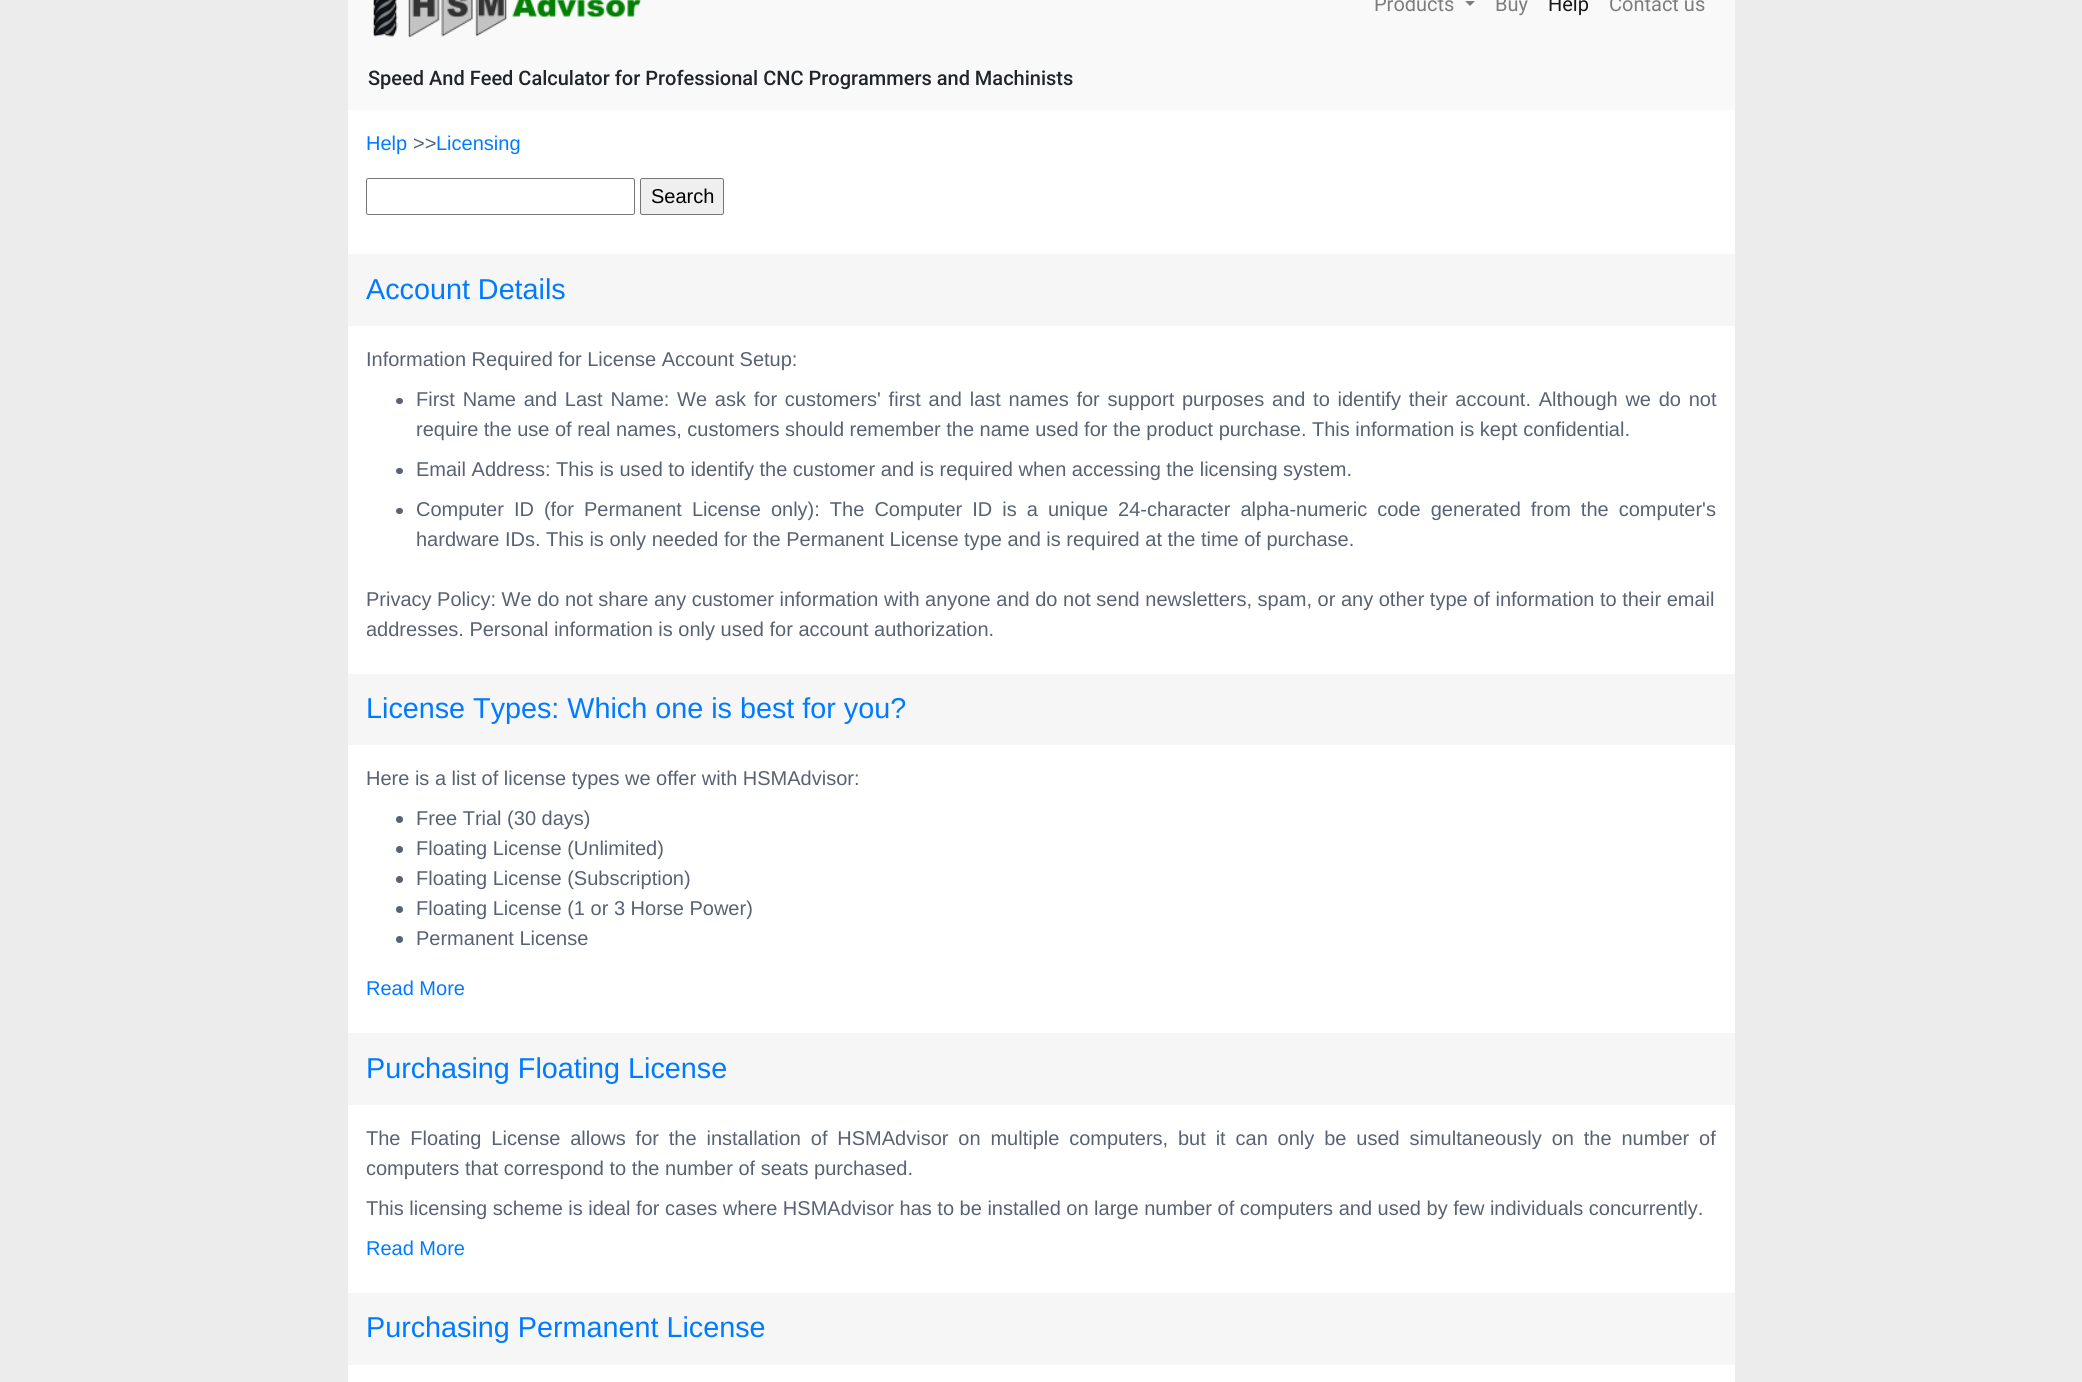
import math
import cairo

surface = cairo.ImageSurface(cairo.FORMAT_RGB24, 2082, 1382)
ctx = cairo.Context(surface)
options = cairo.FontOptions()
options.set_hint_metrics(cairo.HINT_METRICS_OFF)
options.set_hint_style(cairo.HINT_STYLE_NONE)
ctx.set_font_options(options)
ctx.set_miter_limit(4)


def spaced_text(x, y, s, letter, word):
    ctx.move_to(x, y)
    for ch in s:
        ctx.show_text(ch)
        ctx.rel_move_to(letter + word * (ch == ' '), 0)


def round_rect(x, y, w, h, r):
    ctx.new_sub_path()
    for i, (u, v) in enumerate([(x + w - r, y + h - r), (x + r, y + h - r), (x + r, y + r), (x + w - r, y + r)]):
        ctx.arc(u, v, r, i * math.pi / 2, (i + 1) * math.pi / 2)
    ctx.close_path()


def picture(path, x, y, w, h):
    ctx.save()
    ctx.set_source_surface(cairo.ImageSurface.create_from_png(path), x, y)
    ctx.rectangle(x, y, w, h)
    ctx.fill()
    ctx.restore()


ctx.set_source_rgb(0.922, 0.925, 0.922)
ctx.paint()
ctx.set_source_rgb(0.973, 0.976, 0.98)
ctx.rectangle(348, 0, 1387, 110)
ctx.fill()
picture("img1.png", 373, 0, 269, 38)
ctx.select_font_face("Roboto")
ctx.set_font_size(20)
ctx.set_source_rgb(0.486, 0.49, 0.49)
ctx.move_to(1374, 11)
ctx.show_text("Products")
ctx.new_path()
ctx.move_to(1465, 1)
ctx.line_to(1475, 1)
ctx.line_to(1470, 6)
ctx.close_path()
ctx.fill()
ctx.move_to(1495, 11)
ctx.show_text("Buy")
ctx.set_source_rgb(0.098, 0.098, 0.098)
ctx.move_to(1548, 11)
ctx.show_text("Help")
ctx.set_source_rgb(0.486, 0.49, 0.49)
ctx.move_to(1609, 11)
ctx.show_text("Contact us")
ctx.select_font_face("Roboto Medium")
ctx.set_source_rgb(0.129, 0.145, 0.161)
ctx.move_to(368, 85)
ctx.show_text("Speed And Feed Calculator for Professional CNC Programmers and Machinists")
ctx.set_source_rgb(1, 1, 1)
ctx.rectangle(348, 110, 1387, 1272)
ctx.fill()
ctx.select_font_face("Liberation Sans")
ctx.set_source_rgb(0, 0.482, 1)
ctx.move_to(366, 150)
ctx.show_text("Help")
ctx.set_source_rgb(0.345, 0.384, 0.447)
ctx.move_to(413, 150)
ctx.show_text(">>")
ctx.set_source_rgb(0, 0.482, 1)
ctx.move_to(436, 150)
ctx.show_text("Licensing")
round_rect(366.5, 178.5, 268, 36, 2)
ctx.set_source_rgb(0.463, 0.463, 0.463)
ctx.set_line_width(1)
ctx.stroke()
ctx.set_source_rgb(0.937, 0.937, 0.937)
round_rect(640.5, 178.5, 83, 36, 2)
ctx.fill_preserve()
ctx.set_source_rgb(0.463, 0.463, 0.463)
ctx.stroke()
ctx.set_source_rgb(0, 0, 0)
ctx.move_to(651, 203)
ctx.show_text("Search")
ctx.set_source_rgb(0.961, 0.961, 0.961)
ctx.rectangle(348, 254, 1387, 72)
ctx.fill()
ctx.set_font_size(28.75)
ctx.set_source_rgb(0, 0.482, 1)
ctx.move_to(366, 299)
ctx.show_text("Account Details")
ctx.set_font_size(20)
ctx.set_source_rgb(0.345, 0.384, 0.447)
ctx.move_to(366, 366)
ctx.show_text("Information Required for License Account Setup:")
round_rect(396, 398, 7, 6, 3)
ctx.fill()
spaced_text(416, 406, "First Name and Last Name: We ask for customers' first and last names for support purposes and to identify their account. Although we do not", 0, 2.2)
ctx.move_to(416, 436)
ctx.show_text("require the use of real names, customers should remember the name used for the product purchase. This information is kept confidential.")
round_rect(396, 468, 7, 6, 3)
ctx.fill()
ctx.move_to(416, 476)
ctx.show_text("Email Address: This is used to identify the customer and is required when accessing the licensing system.")
round_rect(396, 508, 7, 6, 3)
ctx.fill()
spaced_text(416, 516, "Computer ID (for Permanent License only): The Computer ID is a unique 24-character alpha-numeric code generated from the computer's", 0, 4.5)
ctx.move_to(416, 546)
ctx.show_text("hardware IDs. This is only needed for the Permanent License type and is required at the time of purchase.")
ctx.move_to(366, 606)
ctx.show_text("Privacy Policy: We do not share any customer information with anyone and do not send newsletters, spam, or any other type of information to their email")
ctx.move_to(366, 636)
ctx.show_text("addresses. Personal information is only used for account authorization.")
ctx.set_source_rgb(0.961, 0.961, 0.961)
ctx.rectangle(348, 674, 1387, 71)
ctx.fill()
ctx.set_font_size(28.75)
ctx.set_source_rgb(0, 0.482, 1)
ctx.move_to(366, 718)
ctx.show_text("License Types: Which one is best for you?")
ctx.set_font_size(20)
ctx.set_source_rgb(0.345, 0.384, 0.447)
ctx.move_to(366, 785)
ctx.show_text("Here is a list of license types we offer with HSMAdvisor:")
ctx.new_path()
ctx.arc(399.5, 819.5, 3.5, 0, 2 * math.pi)
ctx.fill()
ctx.move_to(416, 825)
ctx.show_text("Free Trial (30 days)")
ctx.new_path()
ctx.arc(399.5, 849.5, 3.5, 0, 2 * math.pi)
ctx.fill()
ctx.move_to(416, 855)
ctx.show_text("Floating License (Unlimited)")
ctx.new_path()
ctx.arc(399.5, 879.5, 3.5, 0, 2 * math.pi)
ctx.fill()
ctx.move_to(416, 885)
ctx.show_text("Floating License (Subscription)")
ctx.new_path()
ctx.arc(399.5, 909.5, 3.5, 0, 2 * math.pi)
ctx.fill()
ctx.move_to(416, 915)
ctx.show_text("Floating License (1 or 3 Horse Power)")
ctx.new_path()
ctx.arc(399.5, 939.5, 3.5, 0, 2 * math.pi)
ctx.fill()
ctx.move_to(416, 945)
ctx.show_text("Permanent License")
ctx.set_source_rgb(0, 0.482, 1)
ctx.move_to(366, 995)
ctx.show_text("Read More")
ctx.set_source_rgb(0.961, 0.961, 0.961)
ctx.rectangle(348, 1033, 1387, 72)
ctx.fill()
ctx.set_font_size(28.75)
ctx.set_source_rgb(0, 0.482, 1)
ctx.move_to(366, 1078)
ctx.show_text("Purchasing Floating License")
ctx.set_font_size(20)
ctx.set_source_rgb(0.345, 0.384, 0.447)
spaced_text(366, 1145, "The Floating License allows for the installation of HSMAdvisor on multiple computers, but it can only be used simultaneously on the number of", 0, 4.3)
ctx.move_to(366, 1175)
ctx.show_text("computers that correspond to the number of seats purchased.")
ctx.move_to(366, 1215)
ctx.show_text("This licensing scheme is ideal for cases where HSMAdvisor has to be installed on large number of computers and used by few individuals concurrently.")
ctx.set_source_rgb(0, 0.482, 1)
ctx.move_to(366, 1255)
ctx.show_text("Read More")
ctx.set_source_rgb(0.961, 0.961, 0.961)
ctx.rectangle(348, 1293, 1387, 72)
ctx.fill()
ctx.set_font_size(28.75)
ctx.set_source_rgb(0, 0.482, 1)
ctx.move_to(366, 1337)
ctx.show_text("Purchasing Permanent License")
surface.write_to_png("page.png")
